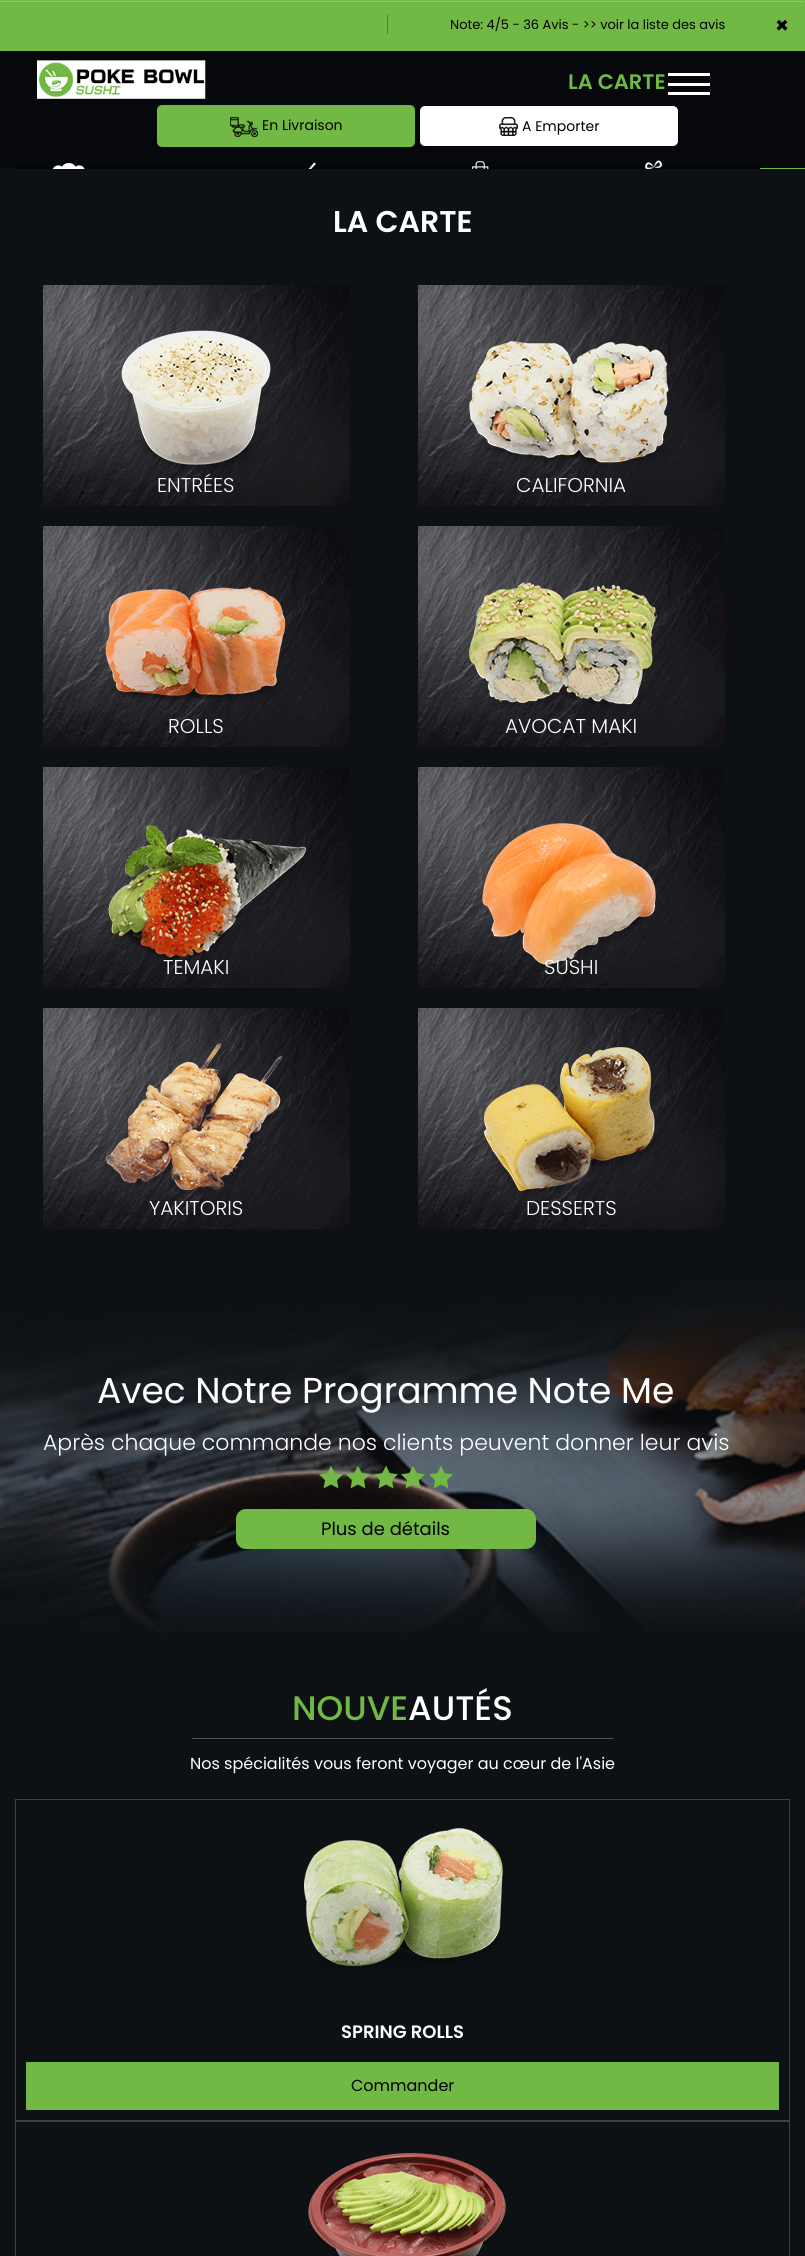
import math
import cairo

surface = cairo.ImageSurface(cairo.FORMAT_RGB24, 805, 2256)
ctx = cairo.Context(surface)
options = cairo.FontOptions()
options.set_hint_metrics(cairo.HINT_METRICS_OFF)
options.set_hint_style(cairo.HINT_STYLE_NONE)
ctx.set_font_options(options)
ctx.set_miter_limit(4)


def round_rect(x, y, w, h, r):
    ctx.new_sub_path()
    for i, (u, v) in enumerate([(x + w - r, y + h - r), (x + r, y + h - r), (x + r, y + r), (x + w - r, y + r)]):
        ctx.arc(u, v, r, i * math.pi / 2, (i + 1) * math.pi / 2)
    ctx.close_path()


def picture(path, x, y, w, h):
    ctx.save()
    ctx.set_source_surface(cairo.ImageSurface.create_from_png(path), x, y)
    ctx.rectangle(x, y, w, h)
    ctx.fill()
    ctx.restore()


ctx.set_source_rgb(0.051, 0.067, 0.082)
ctx.paint()
ctx.set_source_rgb(0.016, 0.02, 0.024)
ctx.rectangle(16, 168, 744, 1)
ctx.fill()
ctx.set_source_rgb(0.443, 0.722, 0.267)
ctx.rectangle(0, 0, 805, 51)
ctx.fill()
ctx.set_source_rgb(0.584, 0.792, 0.451)
ctx.rectangle(1, 1, 803, 1)
ctx.fill()
ctx.set_source_rgb(0.4, 0.4, 0.4)
ctx.rectangle(387, 15, 1, 19)
ctx.fill()
ctx.select_font_face("Poppins")
ctx.set_font_size(13)
ctx.set_source_rgb(0, 0, 0)
ctx.move_to(450, 29)
ctx.show_text("Note: 4/5 - 36 Avis - >> voir la liste des avis")
ctx.select_font_face("Poppins", cairo.FONT_SLANT_NORMAL, cairo.FONT_WEIGHT_BOLD)
ctx.set_font_size(22)
ctx.move_to(775, 33)
ctx.show_text("×")
ctx.set_source_rgb(0.027, 0.035, 0.043)
ctx.rectangle(0, 51, 805, 117)
ctx.fill()
ctx.set_source_rgb(0.008, 0.012, 0.012)
ctx.rectangle(16, 167, 744, 1)
ctx.fill()
picture("img1.png", 37, 60, 169, 39)
ctx.select_font_face("Poppins SemiBold")
ctx.set_font_size(21)
ctx.set_source_rgb(0.443, 0.722, 0.267)
ctx.move_to(568, 89)
ctx.show_text("LA CARTE")
ctx.set_source_rgb(1, 1, 1)
ctx.rectangle(668, 83, 42, 3)
ctx.fill()
ctx.rectangle(668, 73, 42, 3)
ctx.fill()
ctx.rectangle(668, 92, 42, 3)
ctx.fill()
ctx.set_source_rgb(0.443, 0.722, 0.267)
round_rect(157, 105, 258, 42, 5)
ctx.fill()
picture("img2.png", 230, 117, 28, 20)
ctx.select_font_face("Poppins")
ctx.set_font_size(14)
ctx.set_source_rgb(0, 0, 0)
ctx.move_to(262, 130)
ctx.show_text("En Livraison")
ctx.set_source_rgb(1, 1, 1)
round_rect(420, 106, 258, 40, 5)
ctx.fill()
picture("img3.png", 499, 117, 19, 19)
ctx.set_source_rgb(0, 0, 0)
ctx.move_to(522, 131)
ctx.show_text("A Emporter")
ctx.set_source_rgb(0.443, 0.722, 0.267)
ctx.rectangle(760, 168, 45, 1)
ctx.fill()
picture("img4.png", 53, 163, 32, 6)
picture("img5.png", 308, 162, 8, 7)
picture("img6.png", 472, 161, 17, 8)
picture("img7.png", 645, 160, 18, 9)
ctx.select_font_face("Poppins SemiBold")
ctx.set_font_size(30)
ctx.set_source_rgb(1, 1, 1)
ctx.move_to(333, 232)
ctx.show_text("LA CARTE")
picture("img8.png", 43, 285, 307, 221)
ctx.select_font_face("Poppins Light")
ctx.set_font_size(20)
ctx.move_to(157, 492)
ctx.show_text("ENTRÉES")
picture("img9.png", 418, 285, 307, 221)
ctx.move_to(516, 492)
ctx.show_text("CALIFORNIA")
picture("img10.png", 43, 526, 307, 221)
ctx.move_to(168, 733)
ctx.show_text("ROLLS")
picture("img11.png", 418, 526, 307, 221)
ctx.move_to(505, 733)
ctx.show_text("AVOCAT MAKI")
picture("img12.png", 43, 767, 307, 221)
ctx.move_to(163, 974)
ctx.show_text("TEMAKI")
picture("img13.png", 418, 767, 307, 221)
ctx.move_to(544, 974)
ctx.show_text("SUSHI")
picture("img14.png", 43, 1008, 307, 221)
ctx.move_to(149, 1215)
ctx.show_text("YAKITORIS")
picture("img15.png", 418, 1008, 307, 221)
ctx.move_to(526, 1215)
ctx.show_text("DESSERTS")
picture("img16.png", 0, 1279, 805, 354)
ctx.select_font_face("Poppins")
ctx.set_font_size(36)
ctx.move_to(97, 1403)
ctx.show_text("Avec Notre Programme Note Me")
ctx.select_font_face("Poppins Light")
ctx.set_font_size(22)
ctx.move_to(43, 1450)
ctx.show_text("Après chaque commande nos clients peuvent donner leur avis")
picture("img17.png", 319, 1466, 24, 23)
picture("img18.png", 346, 1466, 24, 23)
picture("img19.png", 374, 1465, 24, 24)
picture("img20.png", 401, 1466, 24, 23)
picture("img21.png", 429, 1466, 24, 23)
ctx.set_source_rgb(0.443, 0.722, 0.267)
round_rect(236, 1509, 300, 40, 10)
ctx.fill()
ctx.select_font_face("Poppins")
ctx.set_font_size(18)
ctx.set_source_rgb(0, 0, 0)
ctx.move_to(321, 1535)
ctx.show_text("Plus de détails")
ctx.select_font_face("Poppins Medium")
ctx.set_font_size(34)
ctx.set_source_rgb(0.443, 0.722, 0.267)
ctx.move_to(292, 1720)
ctx.show_text("NOUVE")
ctx.set_source_rgb(1, 1, 1)
ctx.move_to(408, 1720)
ctx.show_text("AUTÉS")
ctx.set_source_rgb(0.333, 0.333, 0.333)
ctx.rectangle(192, 1738, 421, 1)
ctx.fill()
ctx.select_font_face("Poppins")
ctx.set_font_size(16)
ctx.set_source_rgb(1, 1, 1)
ctx.move_to(190, 1769)
ctx.show_text("Nos spécialités vous feront voyager au cœur de l'Asie")
ctx.rectangle(15.5, 1799.5, 774, 321)
ctx.set_source_rgb(0.251, 0.251, 0.251)
ctx.set_line_width(1)
ctx.stroke()
picture("img22.png", 304, 1828, 199, 141)
ctx.select_font_face("Poppins SemiBold")
ctx.set_font_size(18)
ctx.set_source_rgb(1, 1, 1)
ctx.move_to(341, 2038)
ctx.show_text("SPRING ROLLS")
ctx.set_source_rgb(0.443, 0.722, 0.267)
ctx.rectangle(26, 2062, 753, 48)
ctx.fill()
ctx.select_font_face("Poppins")
ctx.set_font_size(16)
ctx.set_source_rgb(0, 0, 0)
ctx.move_to(351, 2091)
ctx.show_text("Commander")
ctx.rectangle(15.5, 2121.5, 774, 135)
ctx.set_source_rgb(0.251, 0.251, 0.251)
ctx.stroke()
picture("img23.png", 308, 2153, 198, 103)
surface.write_to_png("page.png")
